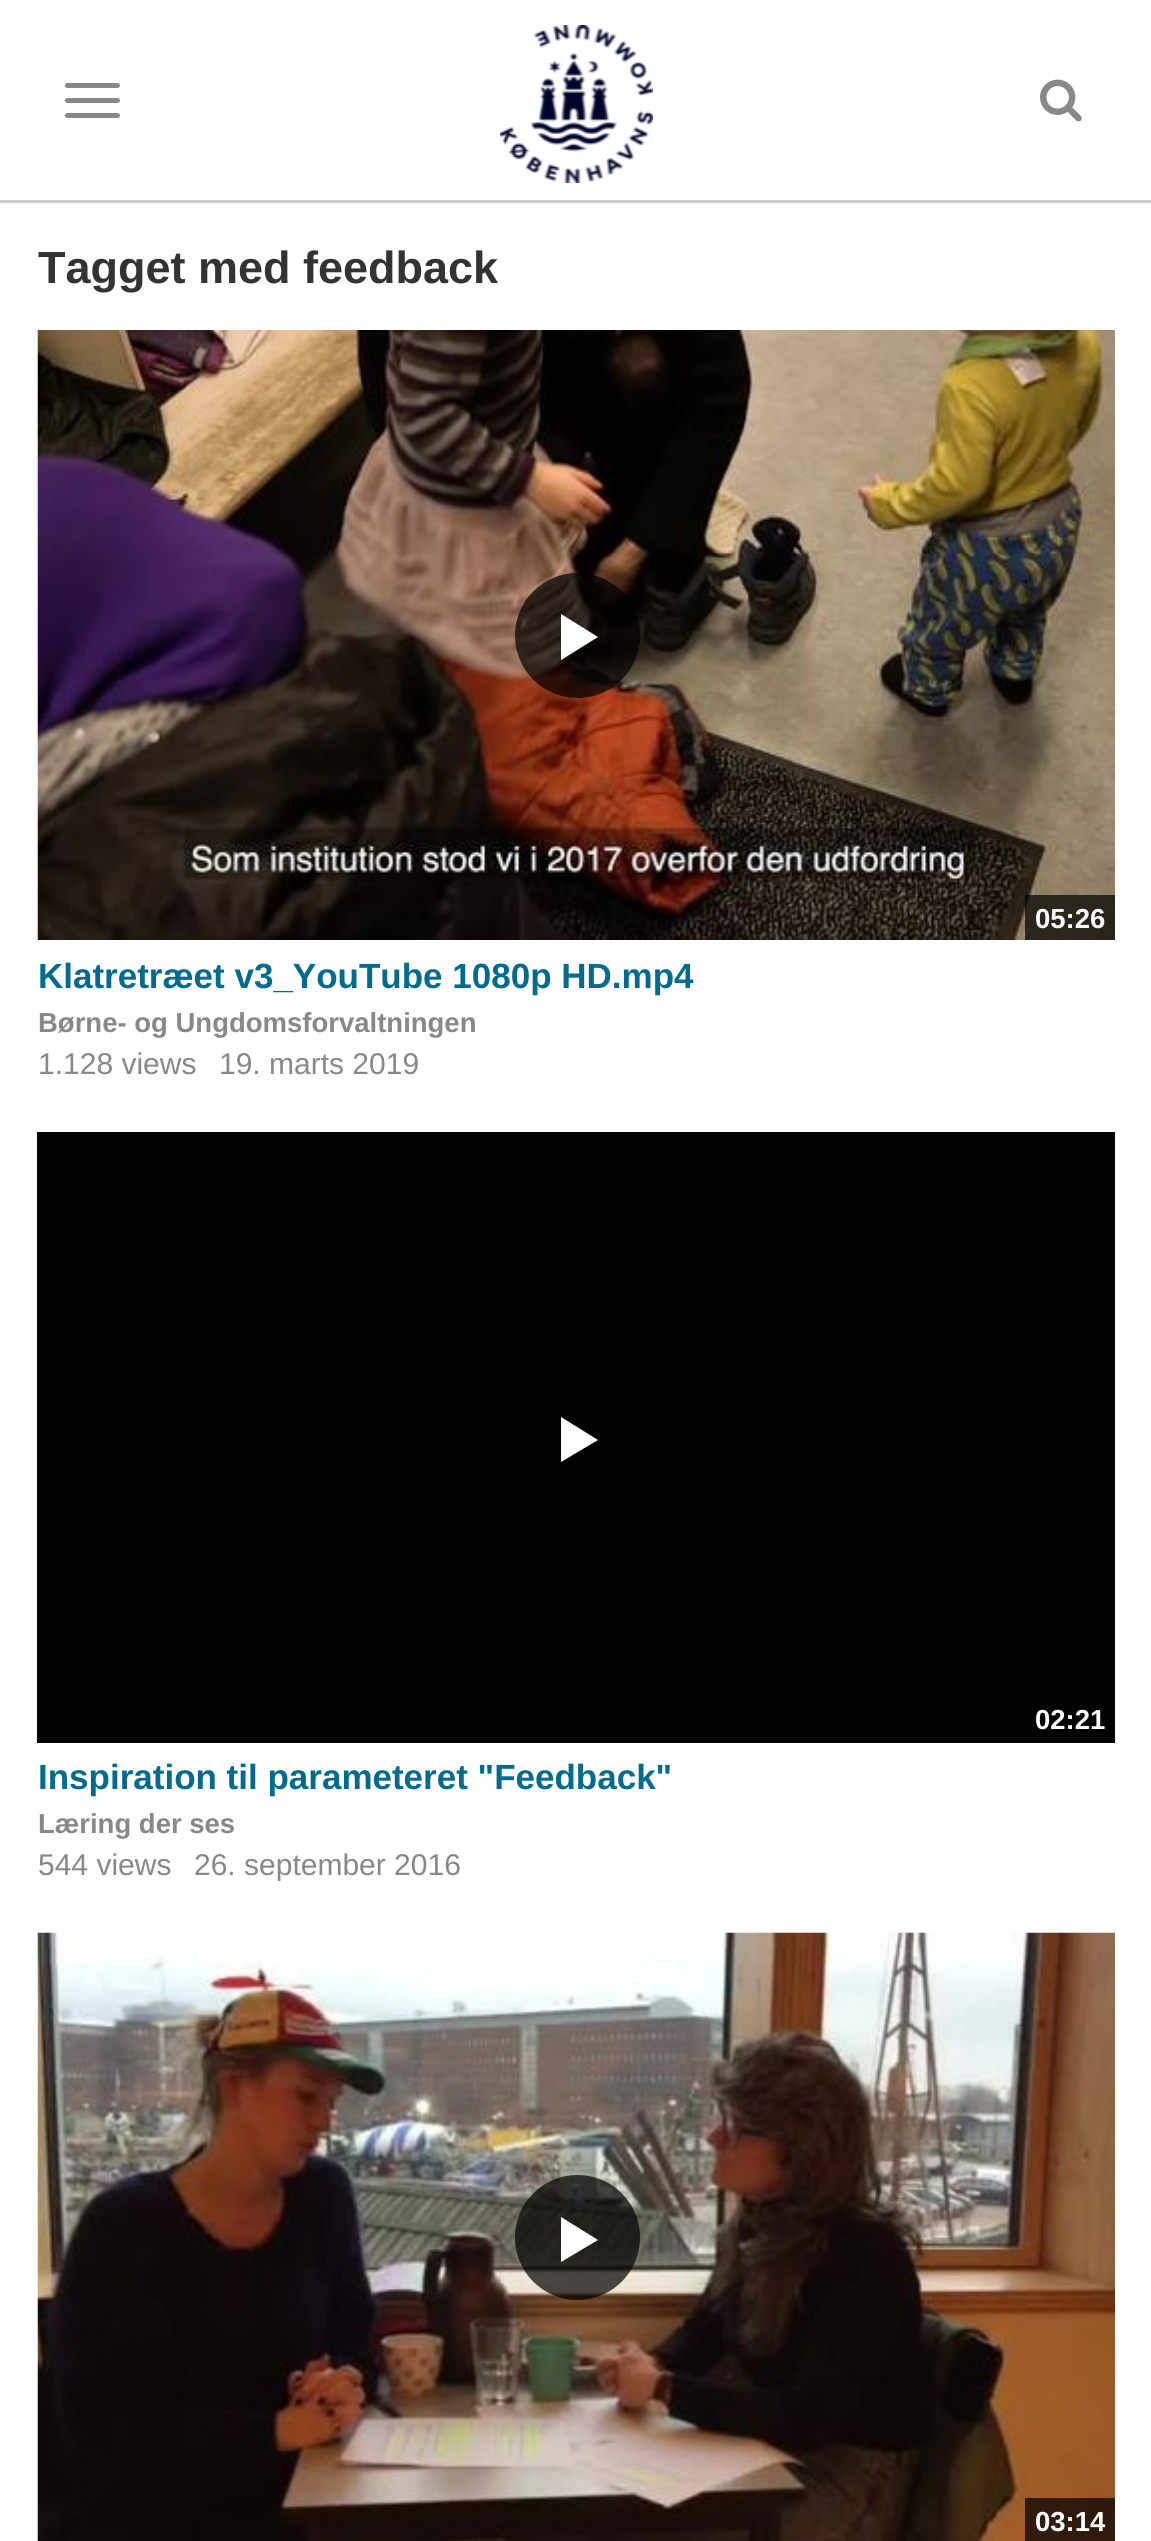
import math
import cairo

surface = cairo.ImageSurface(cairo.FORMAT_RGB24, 1151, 2541)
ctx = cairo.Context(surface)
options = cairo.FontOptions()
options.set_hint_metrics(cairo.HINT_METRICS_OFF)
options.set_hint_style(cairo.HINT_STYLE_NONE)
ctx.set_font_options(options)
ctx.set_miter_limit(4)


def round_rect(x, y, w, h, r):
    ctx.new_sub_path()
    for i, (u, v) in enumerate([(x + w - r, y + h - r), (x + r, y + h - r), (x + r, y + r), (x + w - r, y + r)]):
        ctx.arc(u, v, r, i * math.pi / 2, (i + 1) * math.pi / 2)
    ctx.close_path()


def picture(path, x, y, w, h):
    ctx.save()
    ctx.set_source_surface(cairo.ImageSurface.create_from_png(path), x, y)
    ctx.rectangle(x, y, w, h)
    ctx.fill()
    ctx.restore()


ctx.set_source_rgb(1, 1, 1)
ctx.paint()
ctx.set_source_rgb(0.8, 0.8, 0.8)
ctx.rectangle(0, 200, 1151, 3)
ctx.fill()
ctx.set_source_rgb(0.533, 0.533, 0.533)
round_rect(65, 83, 55, 5, 2.5)
ctx.fill()
round_rect(65, 98, 55, 5, 2.5)
ctx.fill()
round_rect(65, 113, 55, 5, 2.5)
ctx.fill()
picture("img1.png", 500, 25, 153, 158)
picture("img2.png", 1040, 79, 42, 43)
ctx.select_font_face("Liberation Sans", cairo.FONT_SLANT_NORMAL, cairo.FONT_WEIGHT_BOLD)
ctx.set_font_size(45)
ctx.set_source_rgb(0.2, 0.2, 0.2)
ctx.move_to(38, 283)
ctx.show_text("Tagget med feedback")
picture("img3.png", 37, 330, 1078, 610)
ctx.set_source_rgba(0, 0, 0, 0.7)
ctx.arc(577.5, 635.5, 62.5, 0, 2 * math.pi)
ctx.fill()
ctx.set_source_rgb(1, 1, 1)
ctx.new_path()
ctx.move_to(561, 660)
ctx.line_to(598, 637)
ctx.line_to(561, 614)
ctx.close_path()
ctx.fill()
ctx.set_source_rgba(0, 0, 0, 0.7)
ctx.rectangle(1025, 895, 90, 45)
ctx.fill()
ctx.set_font_size(27.5)
ctx.set_source_rgb(1, 1, 1)
ctx.move_to(1035, 928)
ctx.show_text("05:26")
ctx.set_font_size(35)
ctx.set_source_rgb(0, 0.42, 0.549)
ctx.move_to(38, 988)
ctx.show_text("Klatretræet v3_YouTube 1080p HD.mp4")
ctx.set_font_size(27.5)
ctx.set_source_rgb(0.533, 0.533, 0.533)
ctx.move_to(38, 1032)
ctx.show_text("Børne- og Ungdomsforvaltningen")
ctx.select_font_face("Liberation Sans")
ctx.set_font_size(30)
ctx.move_to(38, 1074)
ctx.show_text("1.128 views")
ctx.move_to(219, 1074)
ctx.show_text("19. marts 2019")
ctx.set_source_rgb(0, 0, 0)
ctx.rectangle(37, 1132, 1078, 611)
ctx.fill()
ctx.set_source_rgb(1, 1, 1)
ctx.new_path()
ctx.move_to(561, 1462)
ctx.line_to(598, 1440)
ctx.line_to(561, 1417)
ctx.close_path()
ctx.fill()
ctx.select_font_face("Liberation Sans", cairo.FONT_SLANT_NORMAL, cairo.FONT_WEIGHT_BOLD)
ctx.set_font_size(27.5)
ctx.move_to(1035, 1729)
ctx.show_text("02:21")
ctx.set_font_size(35)
ctx.set_source_rgb(0, 0.42, 0.549)
ctx.move_to(38, 1789)
ctx.show_text("Inspiration til parameteret \"Feedback\"")
ctx.set_font_size(27.5)
ctx.set_source_rgb(0.533, 0.533, 0.533)
ctx.move_to(38, 1833)
ctx.show_text("Læring der ses")
ctx.select_font_face("Liberation Sans")
ctx.set_font_size(30)
ctx.move_to(38, 1875)
ctx.show_text("544 views")
ctx.move_to(194, 1875)
ctx.show_text("26. september 2016")
picture("img4.png", 37, 1932, 1078, 609)
ctx.set_source_rgba(0, 0, 0, 0.7)
ctx.arc(577.5, 2237.5, 62.5, 0, 2 * math.pi)
ctx.fill()
ctx.set_source_rgb(1, 1, 1)
ctx.new_path()
ctx.move_to(561, 2262)
ctx.line_to(598, 2240)
ctx.line_to(561, 2217)
ctx.close_path()
ctx.fill()
ctx.set_source_rgba(0, 0, 0, 0.7)
ctx.rectangle(1025, 2498, 90, 43)
ctx.fill()
ctx.select_font_face("Liberation Sans", cairo.FONT_SLANT_NORMAL, cairo.FONT_WEIGHT_BOLD)
ctx.set_font_size(27.5)
ctx.set_source_rgb(1, 1, 1)
ctx.move_to(1035, 2531)
ctx.show_text("03:14")
surface.write_to_png("page.png")
